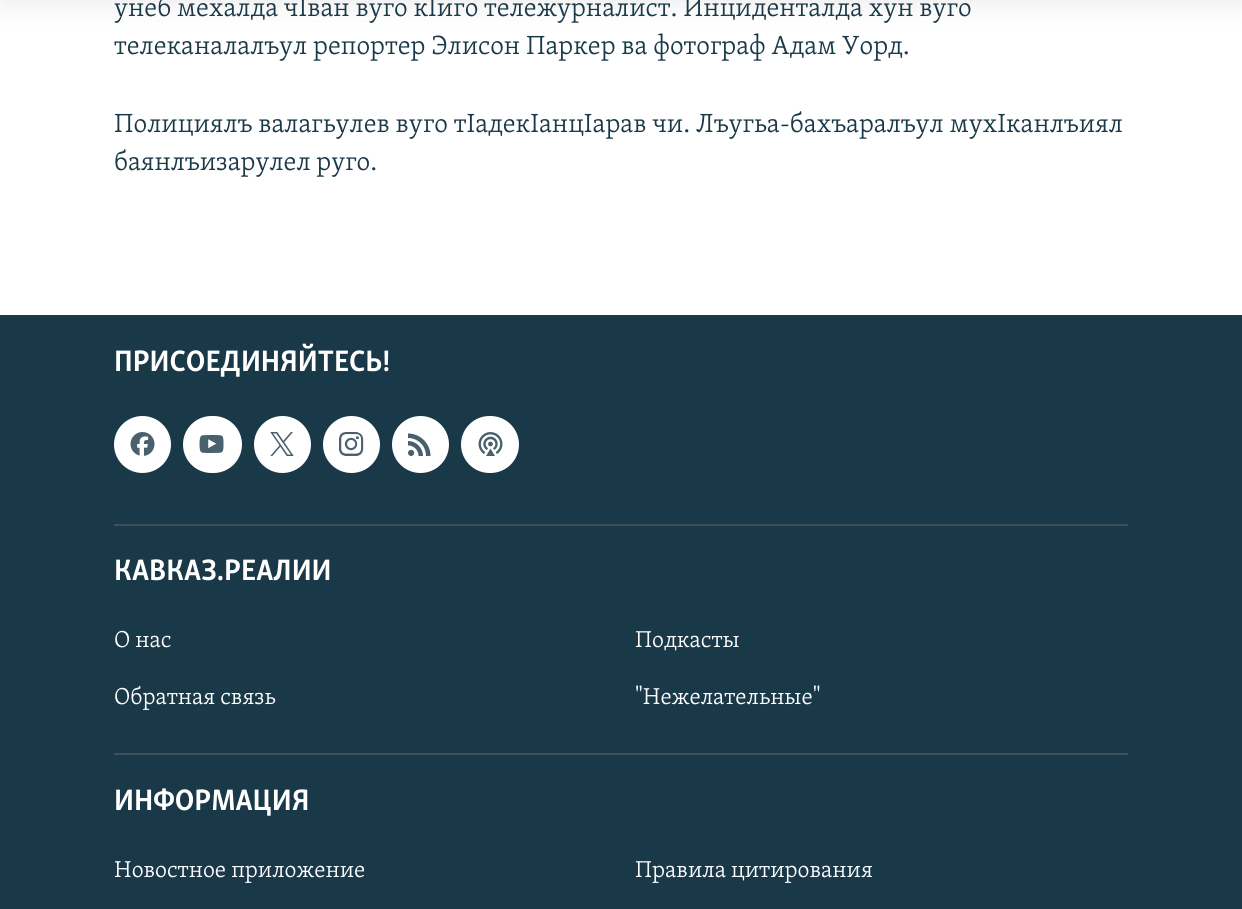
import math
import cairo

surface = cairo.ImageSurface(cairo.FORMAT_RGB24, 1242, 909)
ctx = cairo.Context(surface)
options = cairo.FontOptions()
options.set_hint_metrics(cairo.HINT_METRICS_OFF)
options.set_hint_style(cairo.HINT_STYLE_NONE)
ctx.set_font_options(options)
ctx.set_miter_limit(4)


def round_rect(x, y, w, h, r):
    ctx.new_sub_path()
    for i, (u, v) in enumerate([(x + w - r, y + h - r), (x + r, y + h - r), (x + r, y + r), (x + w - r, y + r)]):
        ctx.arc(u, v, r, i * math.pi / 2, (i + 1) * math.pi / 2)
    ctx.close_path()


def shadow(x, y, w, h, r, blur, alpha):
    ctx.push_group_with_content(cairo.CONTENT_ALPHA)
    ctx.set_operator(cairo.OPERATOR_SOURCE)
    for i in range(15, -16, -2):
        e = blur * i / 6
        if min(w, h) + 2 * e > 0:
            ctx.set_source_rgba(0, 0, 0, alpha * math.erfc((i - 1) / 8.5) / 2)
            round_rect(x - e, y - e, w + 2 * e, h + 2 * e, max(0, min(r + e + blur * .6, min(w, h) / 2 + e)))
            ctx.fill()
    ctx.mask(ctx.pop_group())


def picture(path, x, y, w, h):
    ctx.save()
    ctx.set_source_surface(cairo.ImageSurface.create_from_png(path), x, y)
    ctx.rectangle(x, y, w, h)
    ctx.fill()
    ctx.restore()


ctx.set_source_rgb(1, 1, 1)
ctx.paint()
ctx.set_source_rgb(0, 0, 0)
shadow(0, -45, 1242, 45, 0, 15, 0.1)
ctx.select_font_face("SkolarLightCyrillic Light")
ctx.set_font_size(27)
ctx.set_source_rgb(0.102, 0.224, 0.282)
ctx.move_to(114, 16)
ctx.show_text("унеб мехалда чIван вуго кIиго тележурналист. Инциденталда хун вуго")
ctx.move_to(114, 54)
ctx.show_text("телеканалалъул репортер Элисон Паркер ва фотограф Адам Уорд.")
ctx.move_to(114, 132)
ctx.show_text("Полициялъ валагьулев вуго тIадекIанцIарав чи. Лъугьа-бахъаралъул мухIканлъиял")
ctx.move_to(114, 170)
ctx.show_text("баянлъизарулел руго.")
ctx.rectangle(0, 315, 1242, 594)
ctx.fill()
ctx.select_font_face("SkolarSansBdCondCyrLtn", cairo.FONT_SLANT_NORMAL, cairo.FONT_WEIGHT_BOLD)
ctx.set_font_size(30.4)
ctx.set_source_rgb(1, 1, 1)
ctx.move_to(114, 371)
ctx.show_text("ПРИСОЕДИНЯЙТЕСЬ!")
ctx.new_path()
ctx.arc(142.5, 444.5, 28.5, 0, 2 * math.pi)
ctx.fill()
picture("img1.png", 130, 432, 25, 24)
round_rect(183, 416, 59, 57, 28.5)
ctx.fill()
picture("img2.png", 199, 435, 25, 18)
ctx.arc(282.5, 444.5, 28.5, 0, 2 * math.pi)
ctx.fill()
picture("img3.png", 270, 432, 24, 24)
ctx.arc(351.5, 444.5, 28.5, 0, 2 * math.pi)
ctx.fill()
picture("img4.png", 339, 432, 25, 24)
ctx.arc(420.5, 444.5, 28.5, 0, 2 * math.pi)
ctx.fill()
picture("img5.png", 408, 433, 23, 23)
round_rect(461, 416, 58, 57, 28.5)
ctx.fill()
picture("img6.png", 478, 432, 25, 24)
ctx.set_source_rgb(0.243, 0.31, 0.341)
ctx.rectangle(114, 524, 1014, 2)
ctx.fill()
ctx.set_source_rgb(1, 1, 1)
ctx.move_to(114, 580)
ctx.show_text("КАВКАЗ.РЕАЛИИ")
ctx.select_font_face("SkolarLightCyrillic Light")
ctx.set_font_size(23.6)
ctx.move_to(114, 647)
ctx.show_text("О нас")
ctx.move_to(635, 647)
ctx.show_text("Подкасты")
ctx.move_to(114, 704)
ctx.show_text("Обратная связь")
ctx.move_to(635, 704)
ctx.show_text("\"Нежелательные\"")
ctx.set_source_rgb(0.243, 0.31, 0.341)
ctx.rectangle(114, 753, 1014, 2)
ctx.fill()
ctx.select_font_face("SkolarSansBdCondCyrLtn", cairo.FONT_SLANT_NORMAL, cairo.FONT_WEIGHT_BOLD)
ctx.set_font_size(30.4)
ctx.set_source_rgb(1, 1, 1)
ctx.move_to(114, 810)
ctx.show_text("ИНФОРМАЦИЯ")
ctx.select_font_face("SkolarLightCyrillic Light")
ctx.set_font_size(23.6)
ctx.move_to(114, 877)
ctx.show_text("Новостное приложение")
ctx.move_to(635, 877)
ctx.show_text("Правила цитирования")
surface.write_to_png("page.png")
